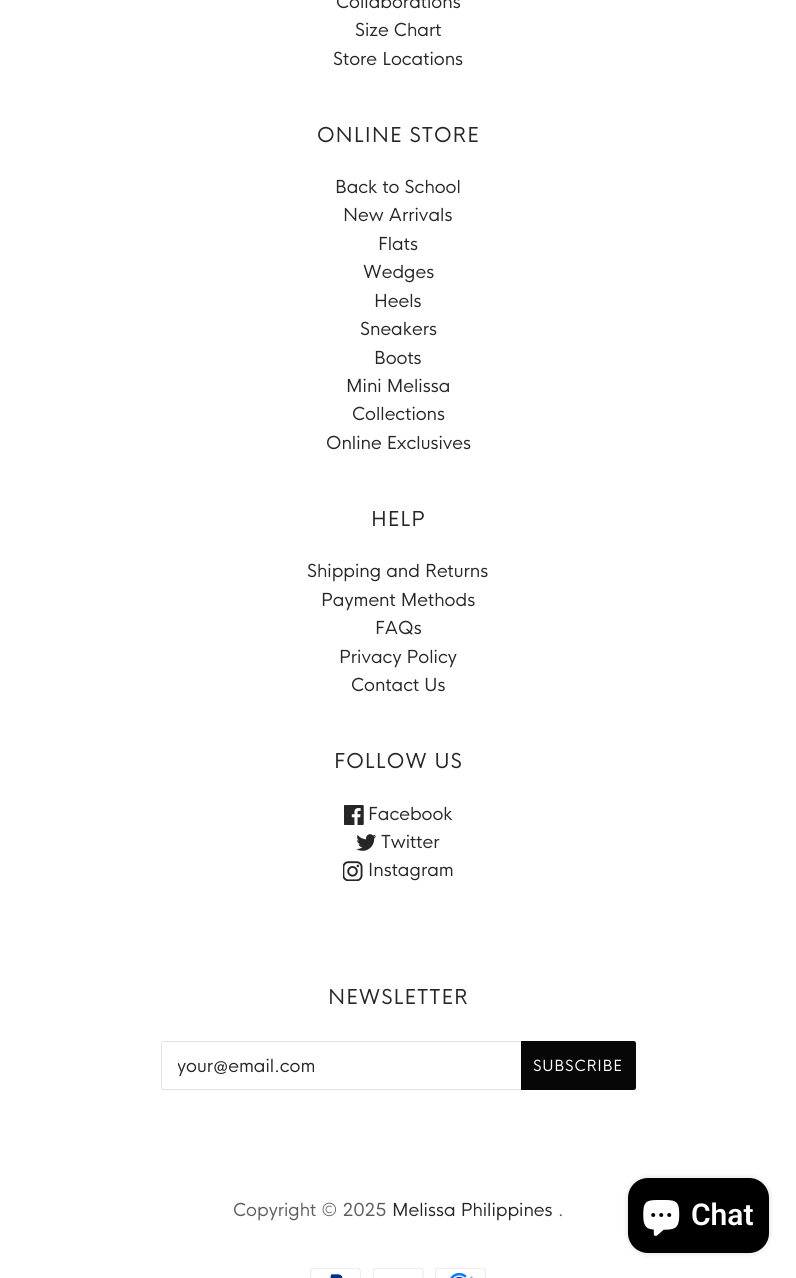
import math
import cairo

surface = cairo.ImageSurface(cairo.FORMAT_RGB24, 796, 1278)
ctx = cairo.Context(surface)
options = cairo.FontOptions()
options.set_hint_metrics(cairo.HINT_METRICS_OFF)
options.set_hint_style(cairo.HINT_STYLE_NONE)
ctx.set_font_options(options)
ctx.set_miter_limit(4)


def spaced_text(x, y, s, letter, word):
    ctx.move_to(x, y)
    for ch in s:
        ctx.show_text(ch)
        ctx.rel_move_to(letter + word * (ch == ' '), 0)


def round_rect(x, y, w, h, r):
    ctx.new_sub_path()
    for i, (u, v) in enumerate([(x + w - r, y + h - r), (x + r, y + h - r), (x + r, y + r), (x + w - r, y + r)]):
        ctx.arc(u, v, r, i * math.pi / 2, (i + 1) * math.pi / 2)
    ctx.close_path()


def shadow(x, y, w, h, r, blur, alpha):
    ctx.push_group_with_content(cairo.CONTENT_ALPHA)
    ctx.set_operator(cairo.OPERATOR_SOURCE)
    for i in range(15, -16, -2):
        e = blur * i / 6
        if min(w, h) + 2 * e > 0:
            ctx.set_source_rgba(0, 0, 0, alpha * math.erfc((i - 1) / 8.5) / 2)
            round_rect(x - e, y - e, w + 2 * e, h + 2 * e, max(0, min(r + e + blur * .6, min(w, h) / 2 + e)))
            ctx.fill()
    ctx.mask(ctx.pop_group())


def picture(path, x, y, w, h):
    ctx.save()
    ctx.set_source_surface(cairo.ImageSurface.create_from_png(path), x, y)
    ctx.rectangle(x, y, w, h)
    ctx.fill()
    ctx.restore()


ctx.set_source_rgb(1, 1, 1)
ctx.paint()
ctx.select_font_face("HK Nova")
ctx.set_font_size(17.5)
ctx.set_source_rgb(0.149, 0.149, 0.149)
ctx.move_to(336, 8)
ctx.show_text("Collaborations")
ctx.move_to(355, 36)
ctx.show_text("Size Chart")
ctx.move_to(333, 65)
ctx.show_text("Store Locations")
ctx.set_font_size(20)
spaced_text(317, 142, "ONLINE STORE", 1, 0)
ctx.set_font_size(17.5)
ctx.move_to(335, 193)
ctx.show_text("Back to School")
ctx.move_to(343, 221)
ctx.show_text("New Arrivals")
ctx.move_to(378, 250)
ctx.show_text("Flats")
ctx.move_to(363, 278)
ctx.show_text("Wedges")
ctx.move_to(374, 307)
ctx.show_text("Heels")
ctx.move_to(360, 335)
ctx.show_text("Sneakers")
ctx.move_to(374, 364)
ctx.show_text("Boots")
ctx.move_to(346, 392)
ctx.show_text("Mini Melissa")
ctx.move_to(352, 420)
ctx.show_text("Collections")
ctx.move_to(326, 449)
ctx.show_text("Online Exclusives")
ctx.set_font_size(20)
spaced_text(371, 526, "HELP", 1, 0)
ctx.set_font_size(17.5)
ctx.move_to(307, 577)
ctx.show_text("Shipping and Returns")
ctx.move_to(321, 606)
ctx.show_text("Payment Methods")
ctx.move_to(375, 634)
ctx.show_text("FAQs")
ctx.move_to(339, 663)
ctx.show_text("Privacy Policy")
ctx.move_to(351, 691)
ctx.show_text("Contact Us")
ctx.set_font_size(20)
spaced_text(334, 768, "FOLLOW US", 1, 0)
picture("img1.png", 344, 805, 20, 20)
ctx.set_font_size(17.5)
ctx.move_to(368, 820)
ctx.show_text("Facebook")
picture("img2.png", 356, 834, 20, 17)
ctx.move_to(381, 848)
ctx.show_text("Twitter")
picture("img3.png", 343, 861, 20, 20)
ctx.move_to(368, 876)
ctx.show_text("Instagram")
ctx.set_font_size(20)
spaced_text(328, 1004, "NEWSLETTER", 1, 0)
round_rect(161.5, 1041.5, 424, 48, 2)
ctx.set_source_rgb(0.894, 0.894, 0.894)
ctx.set_line_width(1)
ctx.stroke()
ctx.save()
ctx.rectangle(178, 1054, 281, 22)
ctx.clip()
ctx.set_font_size(17.5)
ctx.set_source_rgb(0.149, 0.149, 0.149)
ctx.move_to(177, 1072)
ctx.show_text("your@email.com")
ctx.restore()
ctx.set_source_rgb(0.031, 0.031, 0.031)
ctx.new_path()
ctx.move_to(521, 1041)
ctx.line_to(633.5, 1041)
ctx.curve_to(635, 1041, 636, 1042, 636, 1043.5)
ctx.line_to(636, 1087.5)
ctx.curve_to(636, 1089, 635, 1090, 633.5, 1090)
ctx.line_to(521, 1090)
ctx.close_path()
ctx.fill()
ctx.set_font_size(15)
ctx.set_source_rgb(1, 1, 1)
spaced_text(533, 1071, "SUBSCRIBE", 0.75, 0)
ctx.set_font_size(17.5)
ctx.set_source_rgb(0.361, 0.361, 0.361)
ctx.move_to(233, 1216)
ctx.show_text("Copyright © 2025")
ctx.set_source_rgb(0.149, 0.149, 0.149)
ctx.move_to(392, 1216)
ctx.show_text("Melissa Philippines")
ctx.set_source_rgb(0.361, 0.361, 0.361)
ctx.move_to(558, 1216)
ctx.show_text(".")
picture("img4.png", 310, 1268, 51, 10)
picture("img5.png", 373, 1268, 51, 10)
picture("img6.png", 435, 1268, 51, 10)
ctx.set_source_rgb(0, 0, 0)
shadow(628, 1178, 141, 75, 20, 3, 0.15)
ctx.set_source_rgb(0, 0, 0)
round_rect(628, 1178, 141, 75, 20)
ctx.fill()
picture("img7.png", 643, 1200, 37, 36)
ctx.select_font_face("Roboto SemiBold")
ctx.set_font_size(30)
ctx.set_source_rgb(1, 1, 1)
ctx.move_to(691, 1225)
ctx.show_text("Chat")
surface.write_to_png("page.png")
